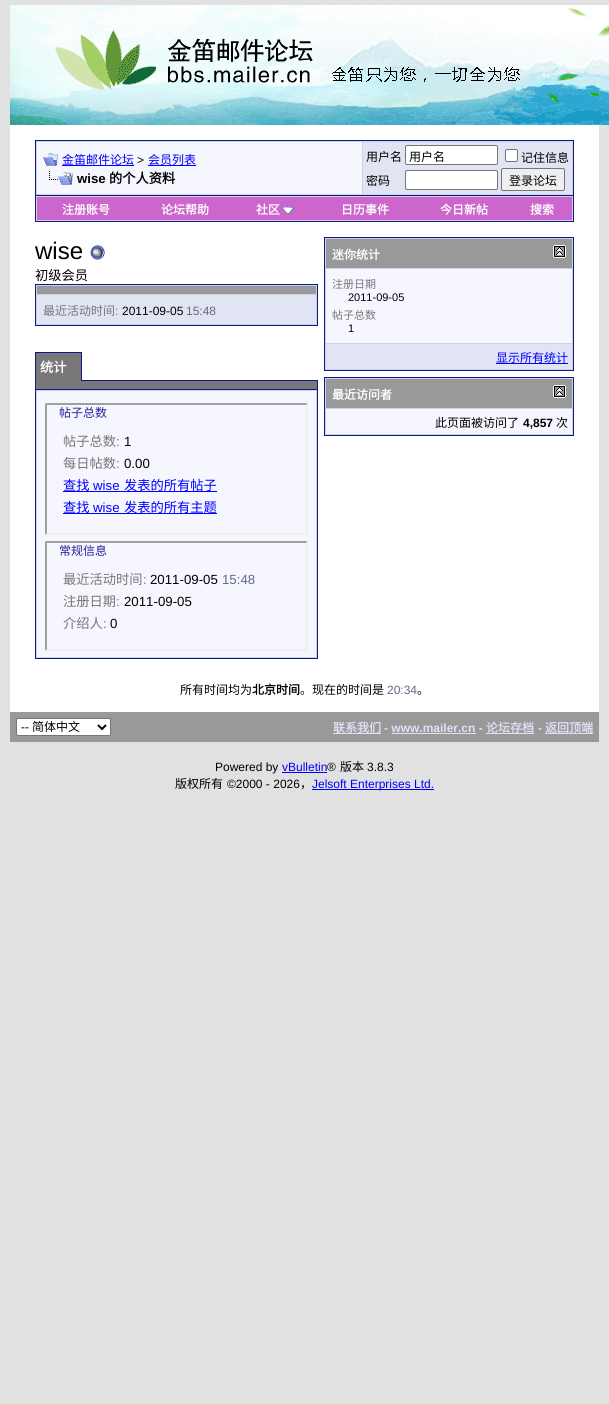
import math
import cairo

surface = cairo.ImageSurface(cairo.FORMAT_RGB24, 609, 1404)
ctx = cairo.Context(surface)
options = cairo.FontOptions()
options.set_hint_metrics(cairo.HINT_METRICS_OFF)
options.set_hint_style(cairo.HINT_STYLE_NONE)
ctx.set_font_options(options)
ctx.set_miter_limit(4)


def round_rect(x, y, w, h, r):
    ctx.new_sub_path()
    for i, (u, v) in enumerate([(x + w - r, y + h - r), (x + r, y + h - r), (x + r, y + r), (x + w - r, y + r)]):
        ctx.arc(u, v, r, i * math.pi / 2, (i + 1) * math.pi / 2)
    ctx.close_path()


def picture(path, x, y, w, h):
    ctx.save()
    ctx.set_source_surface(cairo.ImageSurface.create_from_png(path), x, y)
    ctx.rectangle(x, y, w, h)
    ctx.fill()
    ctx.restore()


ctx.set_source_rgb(0.882, 0.882, 0.886)
ctx.paint()
picture("img1.png", 10, 5, 599, 120)
ctx.set_source_rgb(1, 1, 1)
ctx.rectangle(10, 125, 589, 587)
ctx.fill()
ctx.set_source_rgb(0.82, 0.82, 0.882)
ctx.rectangle(35.5, 140.5, 538, 55)
ctx.fill_preserve()
ctx.set_source_rgb(0.043, 0.098, 0.549)
ctx.set_line_width(1)
ctx.stroke()
ctx.set_source_rgb(0.961, 0.961, 1)
ctx.rectangle(37, 142, 325, 52)
ctx.fill()
picture("img2.png", 43, 153, 15, 13)
ctx.select_font_face("Noto Sans CJK SC")
ctx.set_font_size(12)
ctx.set_source_rgb(0, 0, 1)
ctx.move_to(62, 164)
ctx.show_text("金笛邮件论坛")
ctx.rectangle(62, 165, 72, 1)
ctx.fill()
ctx.select_font_face("Liberation Sans")
ctx.set_source_rgb(0, 0, 0)
ctx.move_to(137, 164)
ctx.show_text(">")
ctx.select_font_face("Noto Sans CJK SC")
ctx.set_source_rgb(0, 0, 1)
ctx.move_to(148, 164)
ctx.show_text("会员列表")
ctx.rectangle(148, 165, 48, 1)
ctx.fill()
picture("img3.png", 49, 171, 24, 14)
ctx.select_font_face("Liberation Sans", cairo.FONT_SLANT_NORMAL, cairo.FONT_WEIGHT_BOLD)
ctx.set_font_size(13.25)
ctx.set_source_rgb(0, 0, 0)
ctx.move_to(77, 183)
ctx.show_text("wise")
ctx.select_font_face("Noto Sans CJK SC", cairo.FONT_SLANT_NORMAL, cairo.FONT_WEIGHT_BOLD)
ctx.move_to(109, 183)
ctx.show_text("的个人资料")
ctx.set_source_rgb(0.882, 0.894, 0.949)
ctx.rectangle(363, 142, 209, 52)
ctx.fill()
ctx.select_font_face("Noto Sans CJK SC")
ctx.set_font_size(12)
ctx.set_source_rgb(0, 0, 0)
ctx.move_to(366, 161)
ctx.show_text("用户名")
ctx.set_source_rgb(1, 1, 1)
round_rect(405.5, 145.5, 92, 19, 1.5)
ctx.fill_preserve()
ctx.set_source_rgb(0.463, 0.463, 0.463)
ctx.stroke()
ctx.set_source_rgb(0, 0, 0)
ctx.move_to(409, 161)
ctx.show_text("用户名")
ctx.set_source_rgb(1, 1, 1)
round_rect(505.5, 149.5, 12, 12, 1.5)
ctx.fill_preserve()
ctx.set_source_rgb(0.463, 0.463, 0.463)
ctx.stroke()
ctx.set_source_rgb(0, 0, 0)
ctx.move_to(521, 162)
ctx.show_text("记住信息")
ctx.move_to(366, 185)
ctx.show_text("密码")
ctx.set_source_rgb(1, 1, 1)
round_rect(405.5, 170.5, 92, 19, 1.5)
ctx.fill_preserve()
ctx.set_source_rgb(0.463, 0.463, 0.463)
ctx.stroke()
ctx.set_source_rgb(0.937, 0.937, 0.937)
round_rect(501.5, 168.5, 63, 22, 1.5)
ctx.fill_preserve()
ctx.set_source_rgb(0.463, 0.463, 0.463)
ctx.stroke()
ctx.set_source_rgb(0, 0, 0)
ctx.move_to(509, 185)
ctx.show_text("登录论坛")
ctx.set_source_rgb(0.82, 0.82, 0.882)
ctx.rectangle(36, 196, 537, 25)
ctx.fill()
ctx.set_source_rgb(0.043, 0.098, 0.549)
ctx.rectangle(573, 196, 1, 26)
ctx.fill()
ctx.rectangle(35, 221, 539, 1)
ctx.fill()
ctx.rectangle(35, 196, 1, 26)
ctx.fill()
ctx.set_source_rgb(0.8, 0.4, 0.8)
ctx.rectangle(37, 197, 535, 23)
ctx.fill()
ctx.select_font_face("Noto Sans CJK SC", cairo.FONT_SLANT_NORMAL, cairo.FONT_WEIGHT_BOLD)
ctx.set_source_rgb(1, 1, 1)
ctx.move_to(62, 214)
ctx.show_text("注册账号")
ctx.move_to(161, 214)
ctx.show_text("论坛帮助")
ctx.move_to(256, 214)
ctx.show_text("社区")
picture("img4.png", 283, 207, 11, 7)
ctx.move_to(341, 214)
ctx.show_text("日历事件")
ctx.move_to(440, 214)
ctx.show_text("今日新帖")
ctx.move_to(530, 214)
ctx.show_text("搜索")
ctx.select_font_face("Liberation Sans")
ctx.set_font_size(24)
ctx.set_source_rgb(0, 0, 0)
ctx.move_to(35, 259)
ctx.show_text("wise")
picture("img5.png", 90, 245, 15, 15)
ctx.select_font_face("Noto Sans CJK SC")
ctx.set_font_size(13.25)
ctx.move_to(35, 280)
ctx.show_text("初级会员")
ctx.set_source_rgb(0.82, 0.82, 0.882)
ctx.rectangle(35.5, 284.5, 282, 41)
ctx.fill_preserve()
ctx.set_source_rgb(0.043, 0.098, 0.549)
ctx.stroke()
ctx.set_source_rgb(0.6, 0.6, 0.6)
ctx.rectangle(37, 286, 279, 8)
ctx.fill()
ctx.set_source_rgb(0.882, 0.894, 0.949)
ctx.rectangle(37, 295, 279, 29)
ctx.fill()
ctx.set_font_size(12)
ctx.set_source_rgb(0.467, 0.467, 0.467)
ctx.move_to(43, 315)
ctx.show_text("最近活动时间")
ctx.select_font_face("Liberation Sans")
ctx.move_to(115, 315)
ctx.show_text(":")
ctx.set_source_rgb(0, 0, 0)
ctx.move_to(122, 315)
ctx.show_text("2011-09-05")
ctx.set_source_rgb(0.4, 0.4, 0.525)
ctx.move_to(186, 315)
ctx.show_text("15:48")
ctx.set_source_rgb(0.471, 0.471, 0.471)
ctx.rectangle(36, 353, 45, 28)
ctx.fill()
ctx.set_source_rgb(0.043, 0.098, 0.549)
ctx.rectangle(35, 352, 47, 1)
ctx.fill()
ctx.rectangle(81, 352, 1, 29)
ctx.fill()
ctx.rectangle(35, 380, 1, 9)
ctx.fill()
ctx.rectangle(35, 352, 1, 29)
ctx.fill()
ctx.select_font_face("Noto Sans CJK SC", cairo.FONT_SLANT_NORMAL, cairo.FONT_WEIGHT_BOLD)
ctx.set_font_size(13.25)
ctx.set_source_rgb(1, 1, 1)
ctx.move_to(40, 372)
ctx.show_text("统计")
ctx.set_source_rgb(0.471, 0.471, 0.471)
ctx.rectangle(36, 381, 281, 8)
ctx.fill()
ctx.set_source_rgb(0.043, 0.098, 0.549)
ctx.rectangle(82, 380, 236, 1)
ctx.fill()
ctx.rectangle(317, 380, 1, 9)
ctx.fill()
ctx.set_source_rgb(0.82, 0.82, 0.882)
ctx.rectangle(35.5, 389.5, 282, 269)
ctx.fill_preserve()
ctx.set_source_rgb(0.043, 0.098, 0.549)
ctx.stroke()
ctx.set_source_rgb(0.961, 0.961, 1)
ctx.rectangle(37, 391, 279, 266)
ctx.fill()
ctx.set_source_rgb(0.624, 0.624, 0.624)
ctx.new_path()
ctx.move_to(45, 403)
ctx.line_to(308, 403)
ctx.line_to(306, 405)
ctx.line_to(47, 405)
ctx.close_path()
ctx.fill()
ctx.set_source_rgb(0.937, 0.937, 0.937)
ctx.new_path()
ctx.move_to(308, 403)
ctx.line_to(308, 535)
ctx.line_to(306, 533)
ctx.line_to(306, 405)
ctx.close_path()
ctx.fill()
ctx.new_path()
ctx.move_to(308, 535)
ctx.line_to(45, 535)
ctx.line_to(47, 533)
ctx.line_to(306, 533)
ctx.close_path()
ctx.fill()
ctx.set_source_rgb(0.624, 0.624, 0.624)
ctx.new_path()
ctx.move_to(45, 535)
ctx.line_to(45, 403)
ctx.line_to(47, 405)
ctx.line_to(47, 533)
ctx.close_path()
ctx.fill()
ctx.select_font_face("Noto Sans CJK SC")
ctx.set_font_size(12)
ctx.set_source_rgb(0.133, 0.133, 0.612)
ctx.move_to(59, 417)
ctx.show_text("帖子总数")
ctx.set_font_size(13.25)
ctx.set_source_rgb(0.467, 0.467, 0.467)
ctx.move_to(63, 446)
ctx.show_text("帖子总数")
ctx.select_font_face("Liberation Sans")
ctx.move_to(116, 446)
ctx.show_text(":")
ctx.set_source_rgb(0, 0, 0)
ctx.move_to(124, 446)
ctx.show_text("1")
ctx.select_font_face("Noto Sans CJK SC")
ctx.set_source_rgb(0.467, 0.467, 0.467)
ctx.move_to(63, 468)
ctx.show_text("每日帖数")
ctx.select_font_face("Liberation Sans")
ctx.move_to(116, 468)
ctx.show_text(":")
ctx.set_source_rgb(0, 0, 0)
ctx.move_to(124, 468)
ctx.show_text("0.00")
ctx.select_font_face("Noto Sans CJK SC")
ctx.set_source_rgb(0, 0, 1)
ctx.move_to(63, 490)
ctx.show_text("查找")
ctx.select_font_face("Liberation Sans")
ctx.move_to(93, 490)
ctx.show_text("wise")
ctx.rectangle(63, 491, 154, 1)
ctx.fill()
ctx.select_font_face("Noto Sans CJK SC")
ctx.move_to(124, 490)
ctx.show_text("发表的所有帖子")
ctx.move_to(63, 512)
ctx.show_text("查找")
ctx.select_font_face("Liberation Sans")
ctx.move_to(93, 512)
ctx.show_text("wise")
ctx.rectangle(63, 513, 154, 1)
ctx.fill()
ctx.select_font_face("Noto Sans CJK SC")
ctx.move_to(124, 512)
ctx.show_text("发表的所有主题")
ctx.set_source_rgb(0.624, 0.624, 0.624)
ctx.new_path()
ctx.move_to(45, 541)
ctx.line_to(308, 541)
ctx.line_to(306, 543)
ctx.line_to(47, 543)
ctx.close_path()
ctx.fill()
ctx.set_source_rgb(0.937, 0.937, 0.937)
ctx.new_path()
ctx.move_to(308, 541)
ctx.line_to(308, 651)
ctx.line_to(306, 649)
ctx.line_to(306, 543)
ctx.close_path()
ctx.fill()
ctx.new_path()
ctx.move_to(308, 651)
ctx.line_to(45, 651)
ctx.line_to(47, 649)
ctx.line_to(306, 649)
ctx.close_path()
ctx.fill()
ctx.set_source_rgb(0.624, 0.624, 0.624)
ctx.new_path()
ctx.move_to(45, 651)
ctx.line_to(45, 541)
ctx.line_to(47, 543)
ctx.line_to(47, 649)
ctx.close_path()
ctx.fill()
ctx.set_font_size(12)
ctx.set_source_rgb(0.133, 0.133, 0.612)
ctx.move_to(59, 555)
ctx.show_text("常规信息")
ctx.set_font_size(13.25)
ctx.set_source_rgb(0.467, 0.467, 0.467)
ctx.move_to(63, 584)
ctx.show_text("最近活动时间")
ctx.select_font_face("Liberation Sans")
ctx.move_to(143, 584)
ctx.show_text(":")
ctx.set_source_rgb(0, 0, 0)
ctx.move_to(150, 584)
ctx.show_text("2011-09-05")
ctx.set_source_rgb(0.4, 0.4, 0.525)
ctx.move_to(222, 584)
ctx.show_text("15:48")
ctx.select_font_face("Noto Sans CJK SC")
ctx.set_source_rgb(0.467, 0.467, 0.467)
ctx.move_to(63, 606)
ctx.show_text("注册日期")
ctx.select_font_face("Liberation Sans")
ctx.move_to(116, 606)
ctx.show_text(":")
ctx.set_source_rgb(0, 0, 0)
ctx.move_to(124, 606)
ctx.show_text("2011-09-05")
ctx.select_font_face("Noto Sans CJK SC")
ctx.set_source_rgb(0.467, 0.467, 0.467)
ctx.move_to(63, 628)
ctx.show_text("介绍人")
ctx.select_font_face("Liberation Sans")
ctx.move_to(103, 628)
ctx.show_text(":")
ctx.set_source_rgb(0, 0, 0)
ctx.move_to(110, 628)
ctx.show_text("0")
ctx.set_source_rgb(0.82, 0.82, 0.882)
ctx.rectangle(324.5, 237.5, 249, 133)
ctx.fill_preserve()
ctx.set_source_rgb(0.043, 0.098, 0.549)
ctx.stroke()
ctx.set_source_rgb(0.6, 0.6, 0.6)
ctx.rectangle(326, 239, 246, 29)
ctx.fill()
ctx.select_font_face("Noto Sans CJK SC", cairo.FONT_SLANT_NORMAL, cairo.FONT_WEIGHT_BOLD)
ctx.set_font_size(12)
ctx.set_source_rgb(1, 1, 1)
ctx.move_to(332, 259)
ctx.show_text("迷你统计")
picture("img6.png", 553, 245, 13, 13)
ctx.set_source_rgb(0.961, 0.961, 1)
ctx.rectangle(326, 269, 246, 74)
ctx.fill()
ctx.select_font_face("Noto Sans CJK SC")
ctx.set_font_size(11)
ctx.set_source_rgb(0.467, 0.467, 0.467)
ctx.move_to(332, 288)
ctx.show_text("注册日期")
ctx.select_font_face("Liberation Sans")
ctx.set_source_rgb(0, 0, 0)
ctx.move_to(348, 301)
ctx.show_text("2011-09-05")
ctx.select_font_face("Noto Sans CJK SC")
ctx.set_source_rgb(0.467, 0.467, 0.467)
ctx.move_to(332, 319)
ctx.show_text("帖子总数")
ctx.select_font_face("Liberation Sans")
ctx.set_source_rgb(0, 0, 0)
ctx.move_to(348, 332)
ctx.show_text("1")
ctx.set_source_rgb(0.882, 0.894, 0.949)
ctx.rectangle(326, 344, 246, 25)
ctx.fill()
ctx.select_font_face("Noto Sans CJK SC")
ctx.set_font_size(12)
ctx.set_source_rgb(0, 0, 1)
ctx.move_to(496, 362)
ctx.show_text("显示所有统计")
ctx.rectangle(496, 363, 72, 1)
ctx.fill()
ctx.set_source_rgb(0.82, 0.82, 0.882)
ctx.rectangle(324.5, 377.5, 249, 58)
ctx.fill_preserve()
ctx.set_source_rgb(0.043, 0.098, 0.549)
ctx.stroke()
ctx.set_source_rgb(0.6, 0.6, 0.6)
ctx.rectangle(326, 379, 246, 29)
ctx.fill()
ctx.select_font_face("Noto Sans CJK SC", cairo.FONT_SLANT_NORMAL, cairo.FONT_WEIGHT_BOLD)
ctx.set_source_rgb(1, 1, 1)
ctx.move_to(332, 399)
ctx.show_text("最近访问者")
picture("img6.png", 553, 385, 13, 13)
ctx.set_source_rgb(0.961, 0.961, 1)
ctx.rectangle(326, 409, 246, 25)
ctx.fill()
ctx.select_font_face("Noto Sans CJK SC")
ctx.set_source_rgb(0, 0, 0)
ctx.move_to(435, 427)
ctx.show_text("此页面被访问了")
ctx.select_font_face("Liberation Sans", cairo.FONT_SLANT_NORMAL, cairo.FONT_WEIGHT_BOLD)
ctx.move_to(523, 427)
ctx.show_text("4,857")
ctx.select_font_face("Noto Sans CJK SC")
ctx.move_to(556, 427)
ctx.show_text("次")
ctx.move_to(180, 694)
ctx.show_text("所有时间均为")
ctx.select_font_face("Noto Sans CJK SC", cairo.FONT_SLANT_NORMAL, cairo.FONT_WEIGHT_BOLD)
ctx.move_to(252, 694)
ctx.show_text("北京时间")
ctx.select_font_face("Noto Sans CJK SC")
ctx.move_to(300, 694)
ctx.show_text("。现在的时间是")
ctx.select_font_face("Liberation Sans")
ctx.set_source_rgb(0.4, 0.4, 0.525)
ctx.move_to(387, 694)
ctx.show_text("20:34")
ctx.select_font_face("Noto Sans CJK SC")
ctx.set_source_rgb(0, 0, 0)
ctx.move_to(417, 694)
ctx.show_text("。")
ctx.set_source_rgb(0.6, 0.6, 0.6)
ctx.rectangle(10, 712, 589, 30)
ctx.fill()
ctx.set_source_rgb(1, 1, 1)
round_rect(16.5, 718.5, 94, 17, 1.5)
ctx.fill_preserve()
ctx.set_source_rgb(0.463, 0.463, 0.463)
ctx.stroke()
ctx.new_path()
ctx.move_to(98, 725)
ctx.line_to(102, 729)
ctx.line_to(106, 725)
ctx.set_source_rgb(0, 0, 0)
ctx.set_line_width(2)
ctx.stroke()
ctx.select_font_face("Liberation Sans")
ctx.move_to(21, 731)
ctx.show_text("--")
ctx.select_font_face("Noto Sans CJK SC")
ctx.move_to(32, 731)
ctx.show_text("简体中文")
ctx.set_source_rgb(0.878, 0.878, 0.965)
ctx.rectangle(333, 733, 48, 1)
ctx.fill()
ctx.select_font_face("Noto Sans CJK SC", cairo.FONT_SLANT_NORMAL, cairo.FONT_WEIGHT_BOLD)
ctx.move_to(333, 732)
ctx.show_text("联系我们")
ctx.select_font_face("Liberation Sans", cairo.FONT_SLANT_NORMAL, cairo.FONT_WEIGHT_BOLD)
ctx.move_to(384, 732)
ctx.show_text("- www.mailer.cn -")
ctx.rectangle(392, 733, 84, 1)
ctx.fill()
ctx.select_font_face("Noto Sans CJK SC", cairo.FONT_SLANT_NORMAL, cairo.FONT_WEIGHT_BOLD)
ctx.move_to(486, 732)
ctx.show_text("论坛存档")
ctx.rectangle(486, 733, 48, 1)
ctx.fill()
ctx.select_font_face("Liberation Sans", cairo.FONT_SLANT_NORMAL, cairo.FONT_WEIGHT_BOLD)
ctx.move_to(538, 732)
ctx.show_text("-")
ctx.rectangle(545, 733, 48, 1)
ctx.fill()
ctx.select_font_face("Noto Sans CJK SC", cairo.FONT_SLANT_NORMAL, cairo.FONT_WEIGHT_BOLD)
ctx.move_to(545, 732)
ctx.show_text("返回顶端")
ctx.select_font_face("Liberation Sans")
ctx.set_source_rgb(0, 0, 0)
ctx.move_to(215, 771)
ctx.show_text("Powered by")
ctx.set_source_rgb(0, 0, 1)
ctx.move_to(282, 771)
ctx.show_text("vBulletin")
ctx.rectangle(282, 772, 45, 1)
ctx.fill()
ctx.set_source_rgb(0, 0, 0)
ctx.move_to(327, 771)
ctx.show_text("®")
ctx.select_font_face("Noto Sans CJK SC")
ctx.move_to(340, 771)
ctx.show_text("版本")
ctx.select_font_face("Liberation Sans")
ctx.move_to(367, 771)
ctx.show_text("3.8.3")
ctx.select_font_face("Noto Sans CJK SC")
ctx.move_to(175, 788)
ctx.show_text("版权所有")
ctx.select_font_face("Liberation Sans")
ctx.move_to(227, 788)
ctx.show_text("©2000 - 2026")
ctx.select_font_face("Noto Sans CJK SC")
ctx.move_to(300, 788)
ctx.show_text("，")
ctx.set_source_rgb(0, 0, 1)
ctx.rectangle(312, 789, 122, 1)
ctx.fill()
ctx.select_font_face("Liberation Sans")
ctx.move_to(312, 788)
ctx.show_text("Jelsoft Enterprises Ltd.")
surface.write_to_png("page.png")
